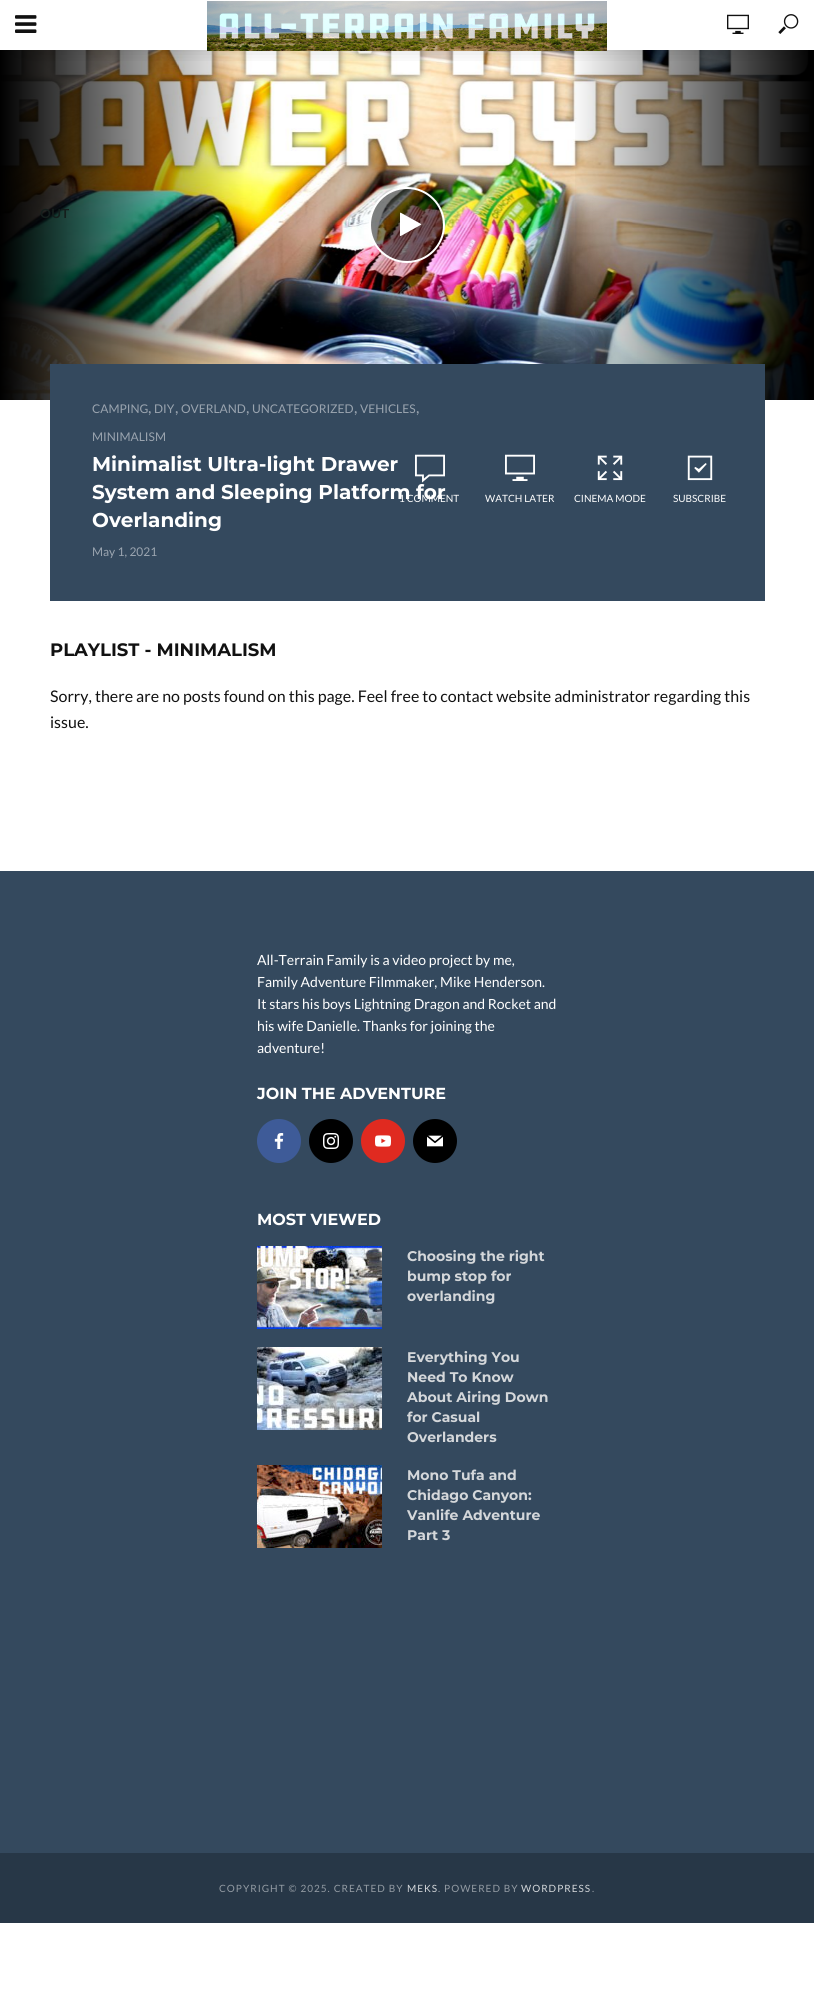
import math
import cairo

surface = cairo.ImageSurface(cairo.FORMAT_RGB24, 814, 2005)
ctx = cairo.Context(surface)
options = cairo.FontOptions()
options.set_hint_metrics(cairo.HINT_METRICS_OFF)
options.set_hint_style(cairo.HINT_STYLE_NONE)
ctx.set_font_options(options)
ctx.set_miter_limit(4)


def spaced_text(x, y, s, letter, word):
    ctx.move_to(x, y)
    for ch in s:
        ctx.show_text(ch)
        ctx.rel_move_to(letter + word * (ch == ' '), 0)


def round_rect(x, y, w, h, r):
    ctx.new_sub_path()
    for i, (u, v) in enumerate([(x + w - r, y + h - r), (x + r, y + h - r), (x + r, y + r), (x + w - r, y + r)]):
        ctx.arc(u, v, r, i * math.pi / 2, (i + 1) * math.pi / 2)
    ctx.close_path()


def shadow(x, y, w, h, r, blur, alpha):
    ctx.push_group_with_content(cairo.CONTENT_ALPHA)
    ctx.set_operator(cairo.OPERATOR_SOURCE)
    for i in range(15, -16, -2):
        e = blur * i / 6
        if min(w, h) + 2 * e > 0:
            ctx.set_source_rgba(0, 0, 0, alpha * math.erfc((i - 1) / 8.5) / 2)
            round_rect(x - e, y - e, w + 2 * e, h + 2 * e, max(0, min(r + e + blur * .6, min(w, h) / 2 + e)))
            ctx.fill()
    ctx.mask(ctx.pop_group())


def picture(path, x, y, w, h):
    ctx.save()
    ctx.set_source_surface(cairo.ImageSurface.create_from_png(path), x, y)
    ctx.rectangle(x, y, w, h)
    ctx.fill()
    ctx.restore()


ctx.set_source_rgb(1, 1, 1)
ctx.paint()
picture("img5.png", 0, 50, 813, 350)
gradient = cairo.LinearGradient(570, 225, 814, 225)
gradient.add_color_stop_rgba(0, 0, 0, 0, 0)
gradient.add_color_stop_rgba(1, 0, 0, 0, 1)
ctx.set_source(gradient)
ctx.rectangle(575, 50, 239, 350)
ctx.fill()
ctx.save()
ctx.rectangle(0, 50, 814, 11)
ctx.clip()
ctx.set_source_rgb(0, 0, 0)
shadow(0, 0, 814, 50, 0, 10, 0.15)
ctx.restore()
picture("img1.png", 207, 1, 400, 50)
picture("img2.png", 727, 14, 22, 20)
picture("img3.png", 778, 14, 21, 20)
picture("img4.png", 15, 15, 22, 18)
ctx.select_font_face("Montserrat SemiBold")
ctx.set_font_size(13)
ctx.set_source_rgb(0.082, 0.118, 0.11)
ctx.move_to(40, 218)
ctx.show_text("OUT")
ctx.set_source_rgba(0, 0, 0, 0.5)
ctx.new_path()
ctx.arc(407, 225, 37, 0, 2 * math.pi)
ctx.fill_preserve()
ctx.set_source_rgb(1, 1, 1)
ctx.stroke()
picture("img6.png", 400, 212, 22, 24)
ctx.set_source_rgb(0.204, 0.286, 0.369)
ctx.rectangle(50, 364, 715, 237)
ctx.fill()
ctx.select_font_face("Lato")
ctx.set_font_size(12)
ctx.set_source_rgb(0.604, 0.643, 0.686)
ctx.move_to(92, 413)
ctx.show_text("CAMPING")
ctx.set_font_size(16)
ctx.move_to(148, 413)
ctx.show_text(",")
ctx.set_font_size(12)
ctx.move_to(154, 413)
ctx.show_text("DIY")
ctx.set_font_size(16)
ctx.move_to(175, 413)
ctx.show_text(",")
ctx.set_font_size(12)
ctx.move_to(181, 413)
ctx.show_text("OVERLAND")
ctx.set_font_size(16)
ctx.move_to(246, 413)
ctx.show_text(",")
ctx.set_font_size(12)
ctx.move_to(252, 413)
ctx.show_text("UNCATEGORIZED")
ctx.set_font_size(16)
ctx.move_to(354, 413)
ctx.show_text(",")
ctx.set_font_size(12)
ctx.move_to(360, 413)
ctx.show_text("VEHICLES")
ctx.set_font_size(16)
ctx.move_to(416, 413)
ctx.show_text(",")
ctx.set_font_size(12)
ctx.move_to(92, 441)
ctx.show_text("MINIMALISM")
ctx.select_font_face("Montserrat", cairo.FONT_SLANT_NORMAL, cairo.FONT_WEIGHT_BOLD)
ctx.set_font_size(20)
ctx.set_source_rgb(1, 1, 1)
ctx.move_to(92, 471)
ctx.show_text("Minimalist Ultra-light Drawer")
ctx.move_to(92, 499)
ctx.show_text("System and Sleeping Platform for")
ctx.move_to(92, 527)
ctx.show_text("Overlanding")
ctx.select_font_face("Lato")
ctx.set_font_size(12)
ctx.set_source_rgb(0.604, 0.643, 0.686)
ctx.move_to(92, 556)
ctx.show_text("May 1, 2021")
picture("img7.png", 415, 454, 30, 29)
ctx.set_font_size(10)
ctx.set_source_rgb(1, 1, 1)
ctx.move_to(399, 502)
ctx.show_text("1 COMMENT")
picture("img8.png", 505, 454, 30, 27)
ctx.move_to(485, 502)
ctx.show_text("WATCH LATER")
picture("img9.png", 597, 455, 26, 26)
ctx.move_to(574, 502)
ctx.show_text("CINEMA MODE")
picture("img10.png", 687, 455, 26, 26)
ctx.move_to(673, 502)
ctx.show_text("SUBSCRIBE")
ctx.select_font_face("Montserrat", cairo.FONT_SLANT_NORMAL, cairo.FONT_WEIGHT_BOLD)
ctx.set_font_size(18)
ctx.set_source_rgb(0.067, 0.067, 0.067)
ctx.move_to(50, 656)
ctx.show_text("PLAYLIST - MINIMALISM")
ctx.select_font_face("Lato")
ctx.set_font_size(16)
ctx.move_to(50, 702)
ctx.show_text("Sorry, there are no posts found on this page. Feel free to contact website administrator regarding this")
ctx.move_to(50, 728)
ctx.show_text("issue.")
ctx.set_source_rgb(0.204, 0.286, 0.369)
ctx.rectangle(0, 871, 814, 982)
ctx.fill()
ctx.set_font_size(14)
ctx.set_source_rgb(1, 1, 1)
ctx.move_to(257, 965)
ctx.show_text("All-Terrain Family is a video project by me,")
ctx.move_to(257, 987)
ctx.show_text("Family Adventure Filmmaker, Mike Henderson.")
ctx.move_to(257, 1009)
ctx.show_text("It stars his boys Lightning Dragon and Rocket and")
ctx.move_to(257, 1031)
ctx.show_text("his wife Danielle. Thanks for joining the")
ctx.move_to(257, 1053)
ctx.show_text("adventure!")
ctx.select_font_face("Montserrat", cairo.FONT_SLANT_NORMAL, cairo.FONT_WEIGHT_BOLD)
ctx.set_font_size(16)
ctx.move_to(257, 1099)
ctx.show_text("JOIN THE ADVENTURE")
ctx.set_source_rgb(0.243, 0.357, 0.596)
ctx.new_path()
ctx.arc(279, 1141, 22, 0, 2 * math.pi)
ctx.fill()
picture("img11.png", 274, 1133, 10, 16)
ctx.set_source_rgb(0, 0, 0)
ctx.arc(331, 1141, 22, 0, 2 * math.pi)
ctx.fill()
picture("img12.png", 323, 1133, 16, 16)
ctx.set_source_rgb(0.878, 0.165, 0.125)
ctx.arc(383, 1141, 22, 0, 2 * math.pi)
ctx.fill()
picture("img13.png", 375, 1135, 16, 12)
ctx.set_source_rgb(0, 0, 0)
ctx.arc(435, 1141, 22, 0, 2 * math.pi)
ctx.fill()
picture("img14.png", 427, 1135, 16, 12)
ctx.set_source_rgb(1, 1, 1)
ctx.move_to(257, 1225)
ctx.show_text("MOST VIEWED")
picture("img15.png", 257, 1246, 125, 83)
ctx.set_font_size(14)
ctx.set_source_rgb(0.831, 0.843, 0.855)
ctx.move_to(407, 1261)
ctx.show_text("Choosing the right")
ctx.move_to(407, 1281)
ctx.show_text("bump stop for")
ctx.move_to(407, 1301)
ctx.show_text("overlanding")
picture("img16.png", 257, 1347, 125, 83)
ctx.move_to(407, 1362)
ctx.show_text("Everything You")
ctx.move_to(407, 1382)
ctx.show_text("Need To Know")
ctx.move_to(407, 1402)
ctx.show_text("About Airing Down")
ctx.move_to(407, 1422)
ctx.show_text("for Casual")
ctx.move_to(407, 1442)
ctx.show_text("Overlanders")
picture("img17.png", 257, 1465, 125, 83)
ctx.move_to(407, 1480)
ctx.show_text("Mono Tufa and")
ctx.move_to(407, 1500)
ctx.show_text("Chidago Canyon:")
ctx.move_to(407, 1520)
ctx.show_text("Vanlife Adventure")
ctx.move_to(407, 1540)
ctx.show_text("Part 3")
ctx.set_source_rgb(0.153, 0.216, 0.278)
ctx.rectangle(0, 1853, 814, 70)
ctx.fill()
ctx.select_font_face("Lato")
ctx.set_font_size(10)
ctx.set_source_rgb(0.576, 0.608, 0.639)
spaced_text(219, 1892, "COPYRIGHT © 2025. CREATED BY", 1, 0)
ctx.set_source_rgb(0.831, 0.843, 0.855)
spaced_text(407, 1892, "MEKS", 1, 0)
ctx.set_source_rgb(0.576, 0.608, 0.639)
spaced_text(438, 1892, ". POWERED BY", 1, 0)
ctx.set_source_rgb(0.831, 0.843, 0.855)
spaced_text(521, 1892, "WORDPRESS", 1, 0)
ctx.set_source_rgb(0.576, 0.608, 0.639)
spaced_text(592, 1892, ".", 1, 0)
surface.write_to_png("page.png")
